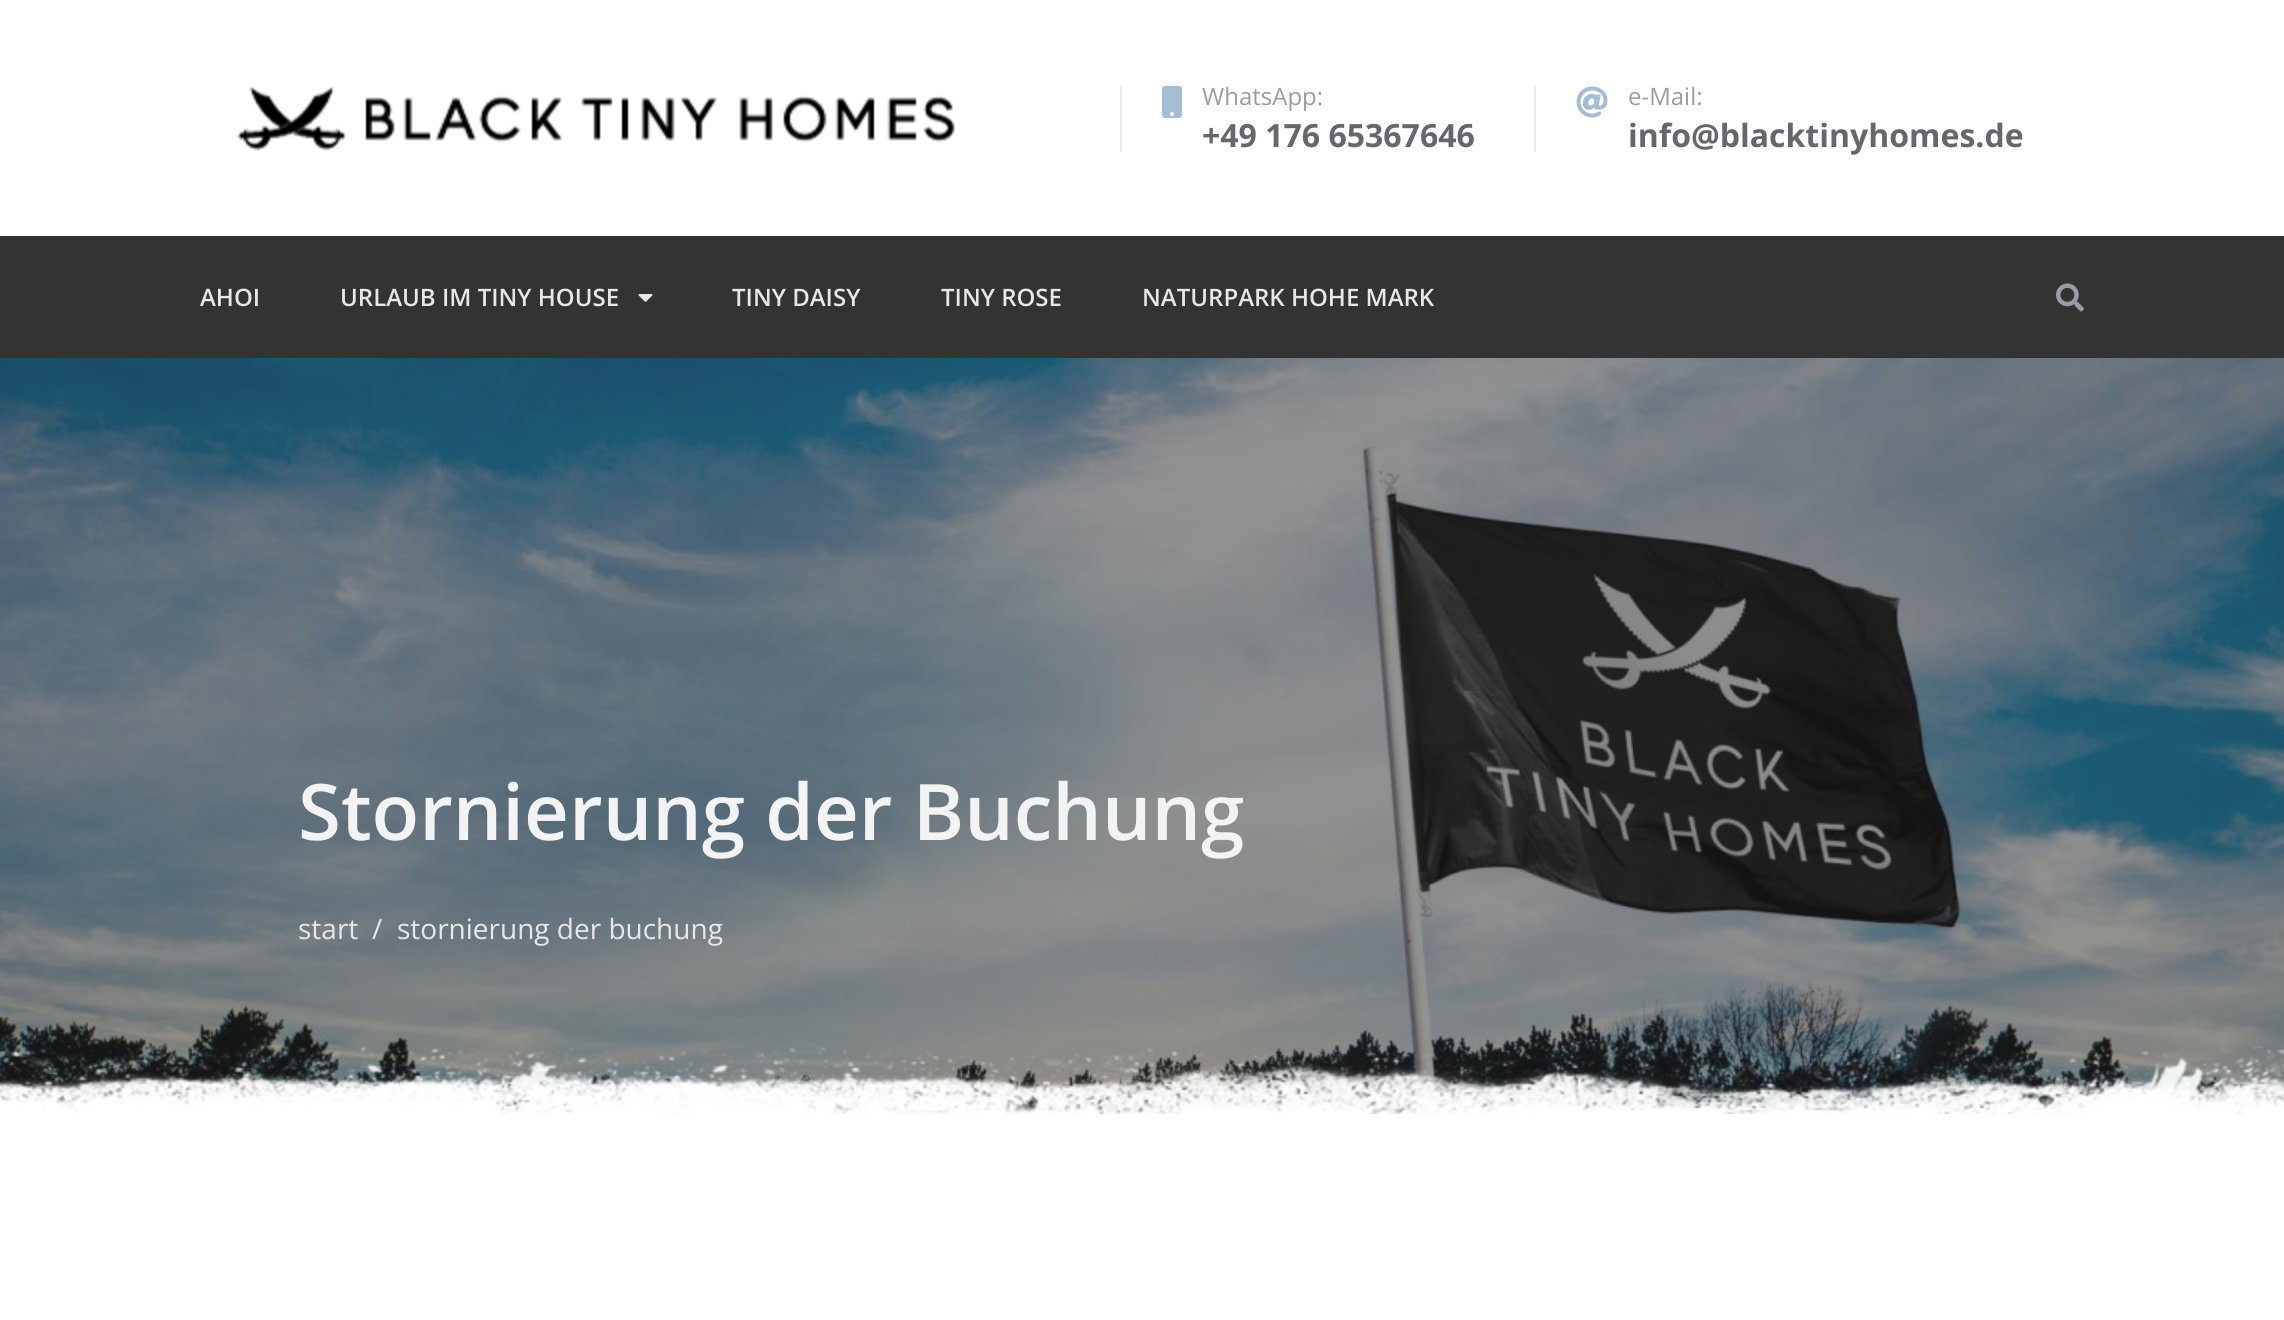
import math
import cairo

surface = cairo.ImageSurface(cairo.FORMAT_RGB24, 2284, 1320)
ctx = cairo.Context(surface)
options = cairo.FontOptions()
options.set_hint_metrics(cairo.HINT_METRICS_OFF)
options.set_hint_style(cairo.HINT_STYLE_NONE)
ctx.set_font_options(options)
ctx.set_miter_limit(4)


def picture(path, x, y, w, h):
    ctx.save()
    ctx.set_source_surface(cairo.ImageSurface.create_from_png(path), x, y)
    ctx.rectangle(x, y, w, h)
    ctx.fill()
    ctx.restore()


ctx.set_source_rgb(1, 1, 1)
ctx.paint()
picture("img1.png", 237, 86, 718, 65)
ctx.set_source_rgb(0.914, 0.914, 0.914)
ctx.rectangle(1120, 86, 2, 66)
ctx.fill()
picture("img2.png", 1162, 86, 20, 32)
ctx.select_font_face("Open Sans")
ctx.set_font_size(24)
ctx.set_source_rgb(0.608, 0.612, 0.643)
ctx.move_to(1202, 105)
ctx.show_text("WhatsApp:")
ctx.select_font_face("Open Sans", cairo.FONT_SLANT_NORMAL, cairo.FONT_WEIGHT_BOLD)
ctx.set_font_size(32)
ctx.set_source_rgb(0.4, 0.404, 0.427)
ctx.move_to(1202, 147)
ctx.show_text("+49 176 65367646")
ctx.set_source_rgb(0.914, 0.914, 0.914)
ctx.rectangle(1534, 86, 2, 66)
ctx.fill()
picture("img3.png", 1576, 86, 32, 32)
ctx.select_font_face("Open Sans")
ctx.set_font_size(24)
ctx.set_source_rgb(0.608, 0.612, 0.643)
ctx.move_to(1628, 105)
ctx.show_text("e-Mail:")
ctx.select_font_face("Open Sans", cairo.FONT_SLANT_NORMAL, cairo.FONT_WEIGHT_BOLD)
ctx.set_font_size(32)
ctx.set_source_rgb(0.4, 0.404, 0.427)
ctx.move_to(1628, 147)
ctx.show_text("info@blacktinyhomes.de")
ctx.set_source_rgb(0.2, 0.2, 0.2)
ctx.rectangle(0, 236, 2284, 122)
ctx.fill()
ctx.select_font_face("Open Sans SemiBold")
ctx.set_font_size(24)
ctx.set_source_rgb(0.906, 0.906, 0.906)
ctx.move_to(200, 306)
ctx.show_text("AHOI")
ctx.move_to(340, 306)
ctx.show_text("URLAUB IM TINY HOUSE")
picture("img4.png", 638, 294, 15, 8)
ctx.move_to(732, 306)
ctx.show_text("TINY DAISY")
ctx.move_to(941, 306)
ctx.show_text("TINY ROSE")
ctx.move_to(1142, 306)
ctx.show_text("NATURPARK HOHE MARK")
picture("img5.png", 2056, 283, 28, 29)
picture("img6.png", 0, 358, 2284, 756)
ctx.set_font_size(78)
ctx.set_source_rgb(0.953, 0.953, 0.953)
ctx.move_to(298, 840)
ctx.show_text("Stornierung der Buchung")
ctx.select_font_face("Open Sans")
ctx.set_font_size(28)
ctx.set_source_rgb(0.906, 0.906, 0.906)
ctx.move_to(298, 939)
ctx.show_text("start")
ctx.move_to(372, 939)
ctx.show_text("/")
ctx.move_to(397, 939)
ctx.show_text("stornierung der buchung")
picture("img7.png", 0, 1046, 2284, 68)
surface.write_to_png("page.png")
